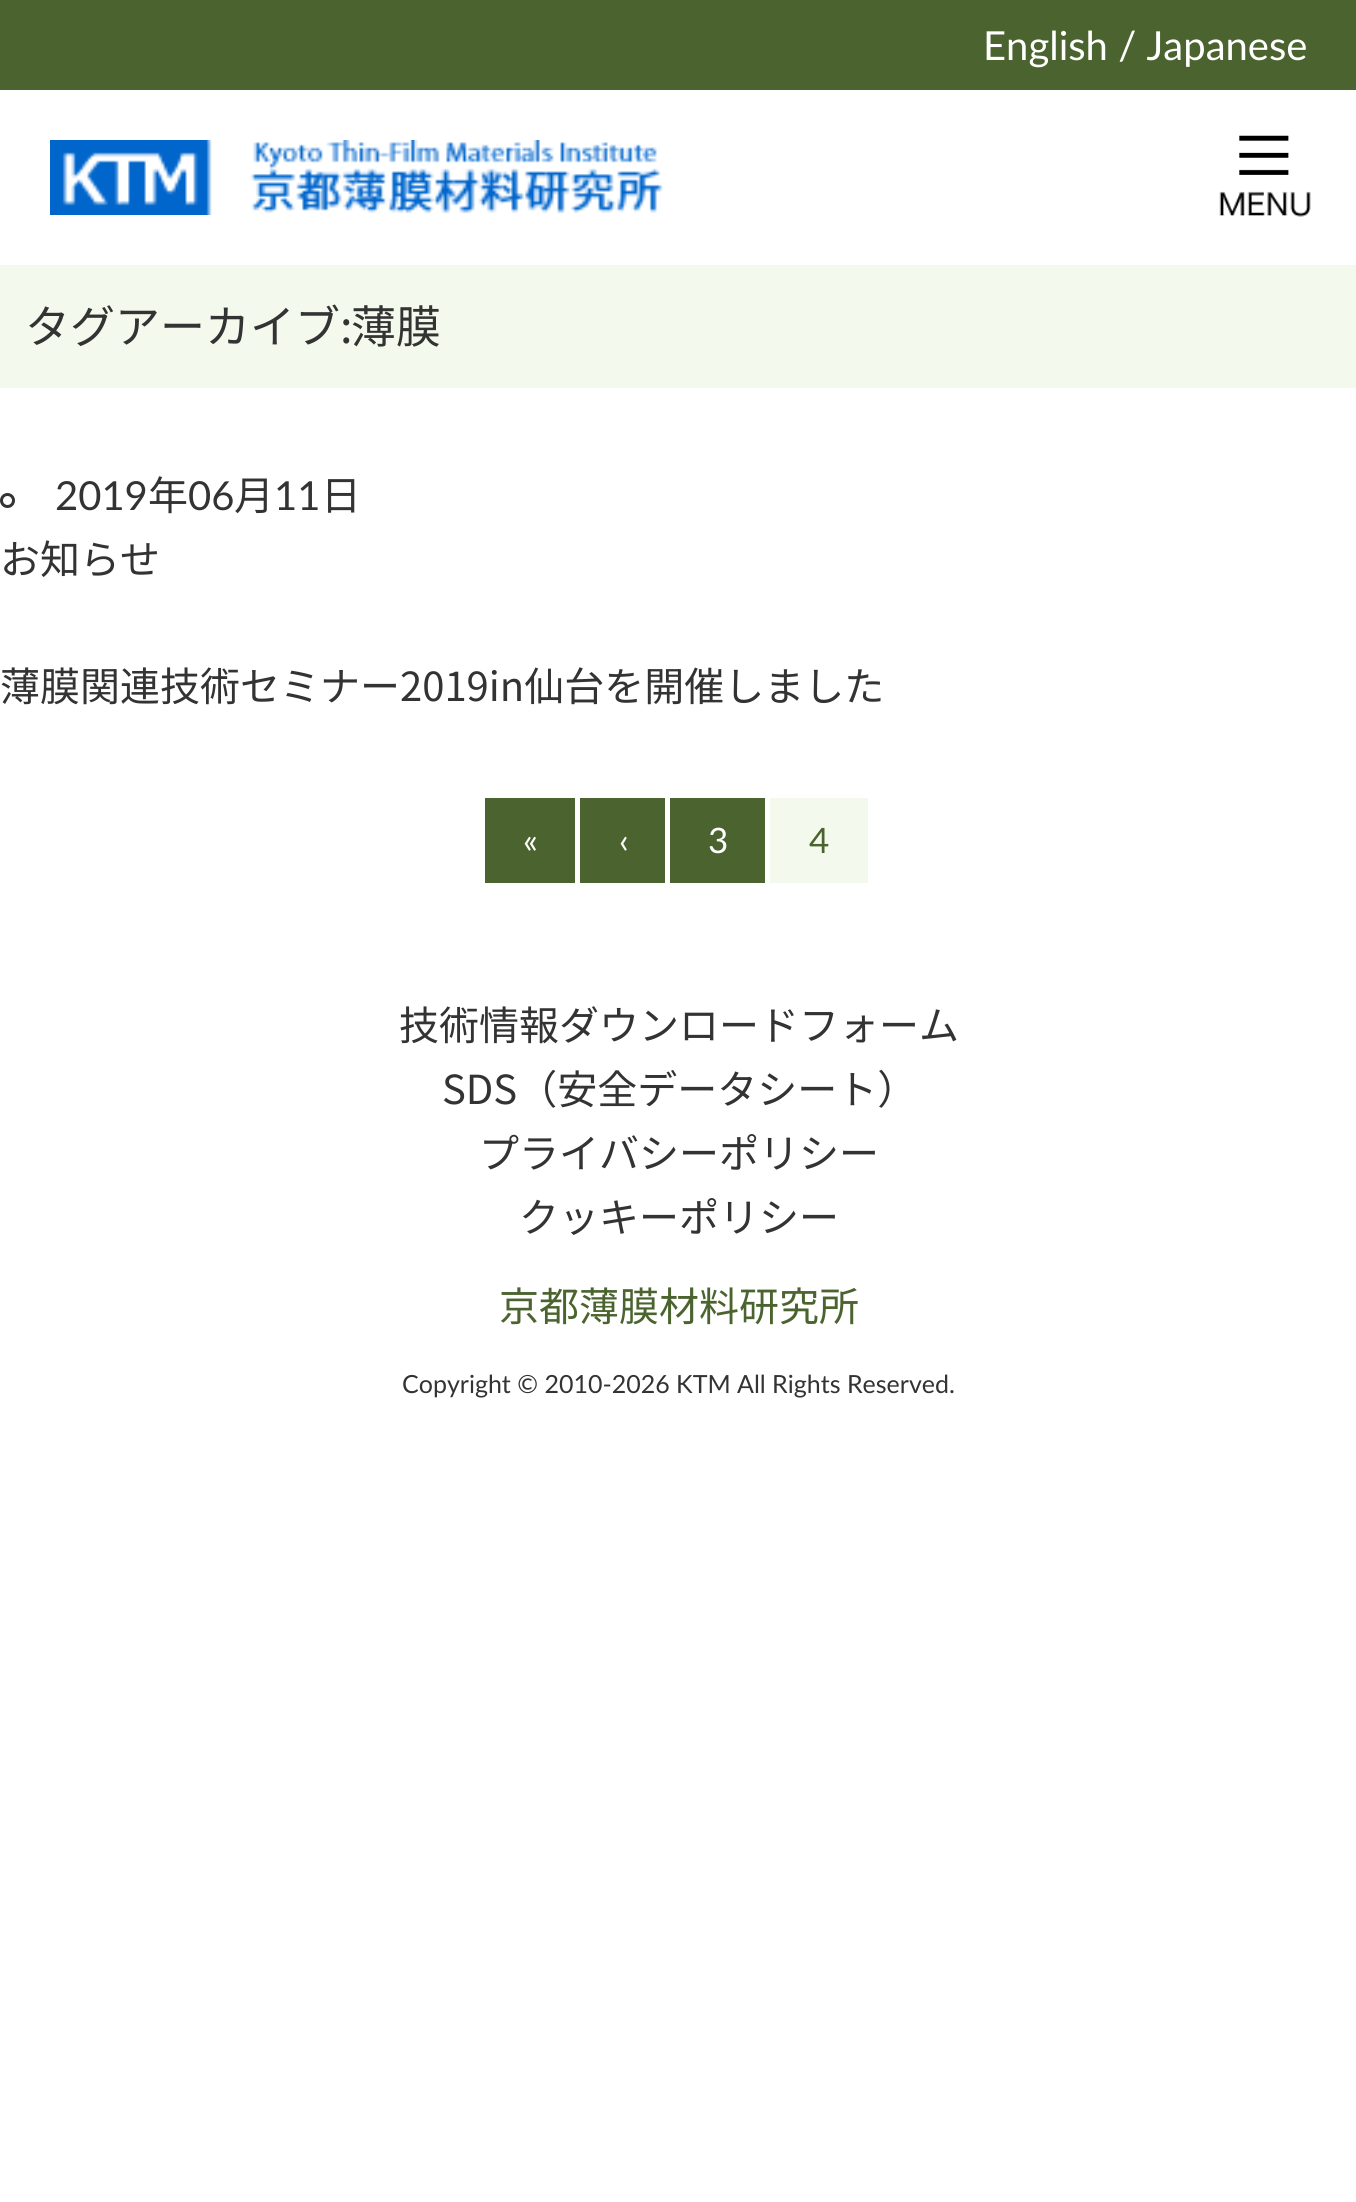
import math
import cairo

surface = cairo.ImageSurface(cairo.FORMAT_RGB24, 1356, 2202)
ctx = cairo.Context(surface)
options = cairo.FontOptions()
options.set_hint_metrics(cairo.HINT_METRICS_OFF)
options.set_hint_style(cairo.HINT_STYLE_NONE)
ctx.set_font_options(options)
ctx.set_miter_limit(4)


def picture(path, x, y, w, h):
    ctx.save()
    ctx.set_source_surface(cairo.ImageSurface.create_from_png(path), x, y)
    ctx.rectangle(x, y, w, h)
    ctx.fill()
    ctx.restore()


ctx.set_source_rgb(1, 1, 1)
ctx.paint()
ctx.set_source_rgb(0.294, 0.392, 0.184)
ctx.rectangle(0, 0, 1356, 90)
ctx.fill()
ctx.select_font_face("Lato")
ctx.set_font_size(40)
ctx.set_source_rgb(1, 1, 1)
ctx.move_to(983, 60)
ctx.show_text("English / Japanese")
picture("img1.png", 50, 140, 613, 75)
picture("img2.png", 1219, 135, 92, 82)
ctx.set_source_rgb(0.953, 0.976, 0.925)
ctx.rectangle(0, 265, 1356, 123)
ctx.fill()
ctx.select_font_face("Noto Sans JP")
ctx.set_font_size(45)
ctx.set_source_rgb(0.2, 0.2, 0.2)
ctx.move_to(25, 343)
ctx.show_text("タグアーカイブ:")
ctx.move_to(351, 343)
ctx.show_text("薄膜")
ctx.new_path()
ctx.arc(7.5, 500.5, 6, 0, 2 * math.pi)
ctx.set_line_width(3)
ctx.stroke()
ctx.select_font_face("Lato")
ctx.set_font_size(40)
ctx.move_to(55, 510)
ctx.show_text("2019")
ctx.select_font_face("Noto Sans JP")
ctx.move_to(148, 510)
ctx.show_text("年")
ctx.select_font_face("Lato")
ctx.move_to(188, 510)
ctx.show_text("06")
ctx.select_font_face("Noto Sans JP")
ctx.move_to(234, 510)
ctx.show_text("月")
ctx.select_font_face("Lato")
ctx.move_to(274, 510)
ctx.show_text("11")
ctx.select_font_face("Noto Sans JP")
ctx.move_to(321, 510)
ctx.show_text("日")
ctx.move_to(0, 574)
ctx.show_text("お知らせ")
ctx.move_to(0, 701)
ctx.show_text("薄膜関連技術セミナー2019in仙台を開催しました")
ctx.set_source_rgb(0.294, 0.392, 0.184)
ctx.rectangle(485, 798, 90, 85)
ctx.fill()
ctx.select_font_face("Lato")
ctx.set_font_size(35)
ctx.set_source_rgb(1, 1, 1)
ctx.move_to(523, 853)
ctx.show_text("«")
ctx.set_source_rgb(0.294, 0.392, 0.184)
ctx.rectangle(580, 798, 85, 85)
ctx.fill()
ctx.set_source_rgb(1, 1, 1)
ctx.move_to(619, 853)
ctx.show_text("‹")
ctx.set_source_rgb(0.294, 0.392, 0.184)
ctx.rectangle(670, 798, 95, 85)
ctx.fill()
ctx.set_source_rgb(1, 1, 1)
ctx.move_to(708, 853)
ctx.show_text("3")
ctx.set_source_rgb(0.953, 0.976, 0.925)
ctx.rectangle(770, 798, 98, 85)
ctx.fill()
ctx.set_source_rgb(0.294, 0.392, 0.184)
ctx.move_to(809, 853)
ctx.show_text("4")
ctx.select_font_face("Noto Sans JP")
ctx.set_font_size(40)
ctx.set_source_rgb(0.2, 0.2, 0.2)
ctx.move_to(399, 1040)
ctx.show_text("技術情報ダウンロードフォーム")
ctx.move_to(442, 1104)
ctx.show_text("SDS（安全データシート）")
ctx.move_to(479, 1168)
ctx.show_text("プライバシーポリシー")
ctx.move_to(519, 1232)
ctx.show_text("クッキーポリシー")
ctx.set_source_rgb(0.294, 0.392, 0.184)
ctx.move_to(499, 1321)
ctx.show_text("京都薄膜材料研究所")
ctx.select_font_face("Lato")
ctx.set_font_size(25)
ctx.set_source_rgb(0.2, 0.2, 0.2)
ctx.move_to(402, 1393)
ctx.show_text("Copyright © 2010-2026 KTM All Rights Reserved.")
surface.write_to_png("page.png")
